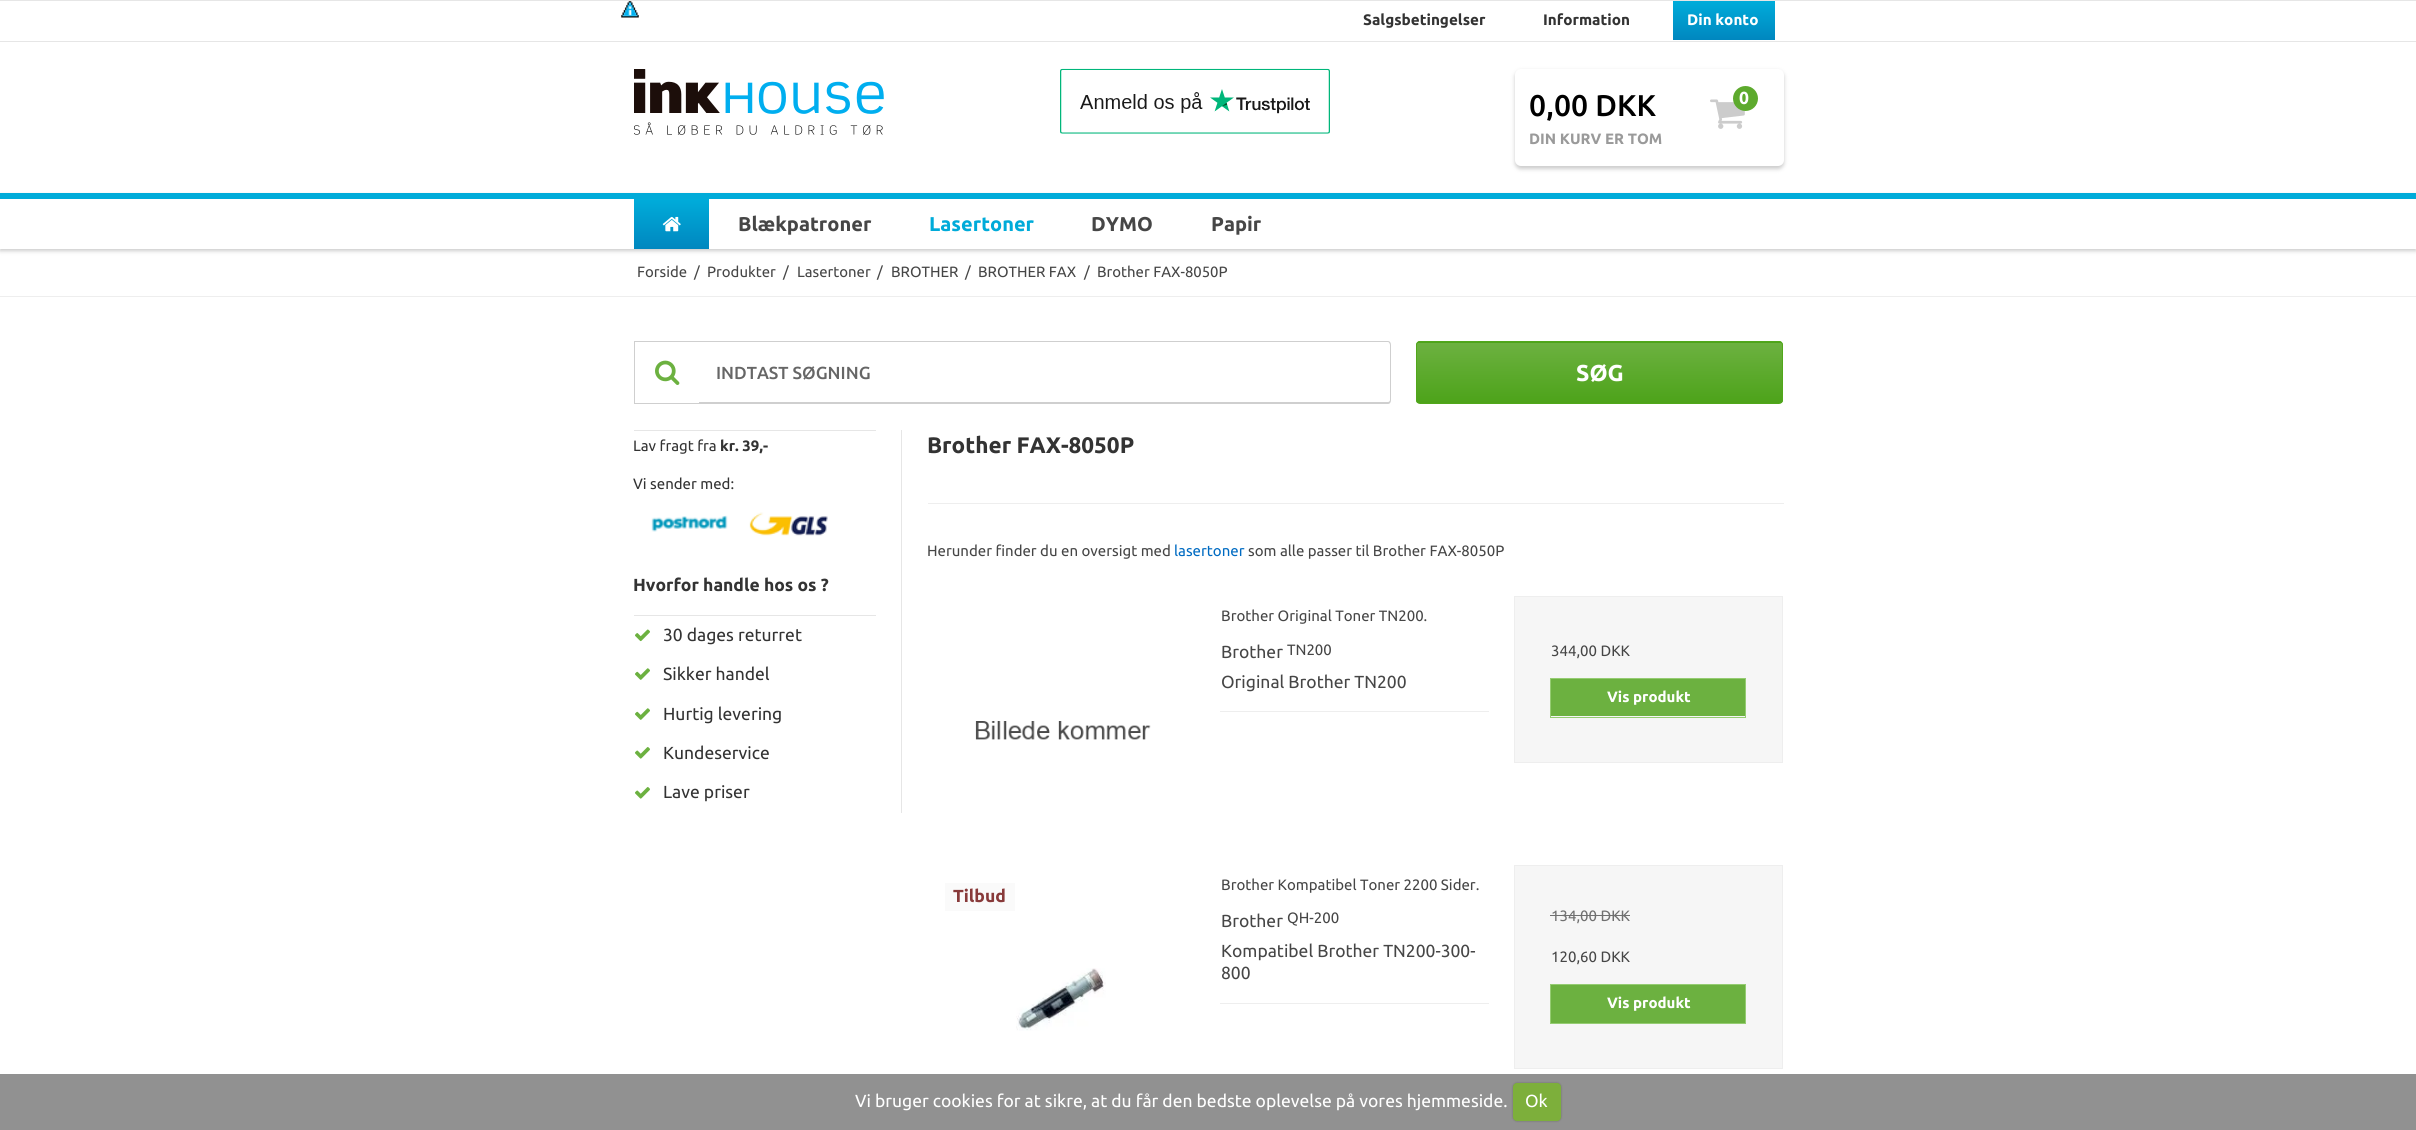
import math
import cairo

surface = cairo.ImageSurface(cairo.FORMAT_RGB24, 2416, 1130)
ctx = cairo.Context(surface)
options = cairo.FontOptions()
options.set_hint_metrics(cairo.HINT_METRICS_OFF)
options.set_hint_style(cairo.HINT_STYLE_NONE)
ctx.set_font_options(options)
ctx.set_miter_limit(4)


def round_rect(x, y, w, h, r):
    ctx.new_sub_path()
    for i, (u, v) in enumerate([(x + w - r, y + h - r), (x + r, y + h - r), (x + r, y + r), (x + w - r, y + r)]):
        ctx.arc(u, v, r, i * math.pi / 2, (i + 1) * math.pi / 2)
    ctx.close_path()


def shadow(x, y, w, h, r, blur, alpha):
    ctx.push_group_with_content(cairo.CONTENT_ALPHA)
    ctx.set_operator(cairo.OPERATOR_SOURCE)
    for i in range(15, -16, -2):
        e = blur * i / 6
        if min(w, h) + 2 * e > 0:
            ctx.set_source_rgba(0, 0, 0, alpha * math.erfc((i - 1) / 8.5) / 2)
            round_rect(x - e, y - e, w + 2 * e, h + 2 * e, max(0, min(r + e + blur * .6, min(w, h) / 2 + e)))
            ctx.fill()
    ctx.mask(ctx.pop_group())


def picture(path, x, y, w, h):
    ctx.save()
    ctx.set_source_surface(cairo.ImageSurface.create_from_png(path), x, y)
    ctx.rectangle(x, y, w, h)
    ctx.fill()
    ctx.restore()


ctx.set_source_rgb(1, 1, 1)
ctx.paint()
ctx.set_source_rgb(0.902, 0.902, 0.902)
ctx.rectangle(0, 0, 2416, 1)
ctx.fill()
ctx.rectangle(0, 41, 2416, 1)
ctx.fill()
picture("img1.png", 621, 1, 18, 17)
ctx.select_font_face("Ubuntu", cairo.FONT_SLANT_NORMAL, cairo.FONT_WEIGHT_BOLD)
ctx.set_font_size(15.25)
ctx.set_source_rgb(0.2, 0.2, 0.2)
ctx.move_to(1363, 25)
ctx.show_text("Salgsbetingelser")
ctx.move_to(1543, 25)
ctx.show_text("Information")
gradient = cairo.LinearGradient(1724, 1.2, 1724, 40)
gradient.add_color_stop_rgba(0, 0, 0.675, 0.855, 1)
gradient.add_color_stop_rgba(1, 0, 0.529, 0.749, 1)
ctx.set_source(gradient)
ctx.rectangle(1673, 1, 102, 39)
ctx.fill()
ctx.set_source_rgb(1, 1, 1)
ctx.move_to(1687, 25)
ctx.show_text("Din konto")
picture("img2.png", 634, 69, 250, 66)
picture("img3.png", 1060, 68, 270, 66)
ctx.set_source_rgb(0.8, 0.8, 0.8)
shadow(1515, 71, 269, 98, 6, 2, 1)
ctx.set_source_rgb(1, 1, 1)
round_rect(1515, 69, 269, 97, 6)
ctx.fill()
ctx.select_font_face("Ubuntu Medium")
ctx.set_font_size(30)
ctx.set_source_rgb(0, 0, 0)
ctx.move_to(1529, 116)
ctx.show_text("0,00 DKK")
picture("img4.png", 1710, 99, 35, 30)
ctx.set_source_rgb(0.365, 0.667, 0.176)
ctx.arc(1745.5, 98.5, 12.5, 0, 2 * math.pi)
ctx.fill()
ctx.select_font_face("Ubuntu", cairo.FONT_SLANT_NORMAL, cairo.FONT_WEIGHT_BOLD)
ctx.set_font_size(17.5)
ctx.set_source_rgb(1, 1, 1)
ctx.move_to(1739, 104)
ctx.show_text("0")
ctx.set_font_size(15)
ctx.set_source_rgb(0.604, 0.604, 0.604)
ctx.move_to(1529, 144)
ctx.show_text("DIN KURV ER TOM")
ctx.set_source_rgb(0.8, 0.8, 0.8)
shadow(0, 195, 2416, 56, 0, 2, 1)
ctx.set_source_rgb(1, 1, 1)
ctx.rectangle(0, 199, 2416, 50)
ctx.fill()
ctx.set_source_rgb(0, 0.671, 0.851)
ctx.rectangle(0, 193, 2416, 6)
ctx.fill()
gradient = cairo.LinearGradient(671, 199, 671, 249)
gradient.add_color_stop_rgba(0, 0, 0.675, 0.855, 1)
gradient.add_color_stop_rgba(1, 0, 0.529, 0.749, 1)
ctx.set_source(gradient)
ctx.rectangle(634, 199, 75, 50)
ctx.fill()
picture("img5.png", 662, 216, 19, 16)
ctx.set_font_size(20)
ctx.set_source_rgb(0.275, 0.275, 0.275)
ctx.move_to(738, 231)
ctx.show_text("Blækpatroner")
ctx.set_source_rgb(0, 0.671, 0.851)
ctx.move_to(929, 231)
ctx.show_text("Lasertoner")
ctx.set_source_rgb(0.275, 0.275, 0.275)
ctx.move_to(1091, 231)
ctx.show_text("DYMO")
ctx.move_to(1211, 231)
ctx.show_text("Papir")
ctx.set_source_rgb(0.933, 0.933, 0.933)
ctx.rectangle(0, 296, 2416, 1)
ctx.fill()
ctx.select_font_face("Ubuntu")
ctx.set_font_size(14.9)
ctx.set_source_rgb(0.275, 0.275, 0.275)
ctx.move_to(637, 277)
ctx.show_text("Forside")
ctx.move_to(694, 277)
ctx.show_text("/")
ctx.move_to(707, 277)
ctx.show_text("Produkter")
ctx.move_to(783, 277)
ctx.show_text("/")
ctx.move_to(797, 277)
ctx.show_text("Lasertoner")
ctx.move_to(877, 277)
ctx.show_text("/")
ctx.move_to(891, 277)
ctx.show_text("BROTHER")
ctx.move_to(965, 277)
ctx.show_text("/")
ctx.move_to(978, 277)
ctx.show_text("BROTHER FAX")
ctx.move_to(1084, 277)
ctx.show_text("/")
ctx.move_to(1097, 277)
ctx.show_text("Brother FAX-8050P")
ctx.set_source_rgb(0.812, 0.812, 0.812)
ctx.rectangle(634, 341, 65, 1)
ctx.fill()
ctx.rectangle(634, 403, 65, 1)
ctx.fill()
ctx.rectangle(634, 341, 1, 63)
ctx.fill()
picture("img6.png", 655, 360, 25, 25)
ctx.set_fill_rule(cairo.FILL_RULE_EVEN_ODD)
ctx.new_path()
ctx.move_to(699, 341)
ctx.line_to(1388, 341)
ctx.curve_to(1390, 341, 1391, 343, 1391, 345)
ctx.line_to(1391, 400)
ctx.curve_to(1391, 402, 1390, 404, 1388, 404)
ctx.line_to(699, 404)
ctx.close_path()
ctx.move_to(699, 342)
ctx.line_to(1388, 342)
ctx.curve_to(1389, 342, 1390, 344, 1390, 345)
ctx.line_to(1390, 400)
ctx.curve_to(1390, 401, 1389, 402, 1388, 402)
ctx.line_to(699, 402)
ctx.close_path()
ctx.fill()
ctx.select_font_face("Ubuntu Medium")
ctx.set_font_size(17.5)
ctx.set_source_rgb(0.4, 0.4, 0.4)
ctx.move_to(716, 379)
ctx.show_text("INDTAST SØGNING")
ctx.save()
ctx.set_fill_rule(cairo.FILL_RULE_WINDING)
round_rect(1416, 341, 367, 63, 4)
ctx.clip()
gradient = cairo.LinearGradient(1599, 282, 1599, 343)
gradient.add_color_stop_rgba(0, 0.424, 0.694, 0.251, 1)
gradient.add_color_stop_rgba(1, 0.302, 0.639, 0.102, 1)
ctx.set_source(gradient)
ctx.rectangle(1416, 341, 367, 2)
ctx.fill()
gradient = cairo.LinearGradient(1599, 343, 1599, 403)
gradient.add_color_stop_rgba(0, 0.424, 0.694, 0.251, 1)
gradient.add_color_stop_rgba(1, 0.302, 0.639, 0.102, 1)
ctx.set_source(gradient)
ctx.rectangle(1416, 343, 367, 60)
ctx.fill()
ctx.restore()
round_rect(1416.5, 341.5, 366, 62, 3.5)
ctx.set_source_rgb(0.318, 0.655, 0.106)
ctx.set_line_width(1)
ctx.stroke()
ctx.select_font_face("Ubuntu", cairo.FONT_SLANT_NORMAL, cairo.FONT_WEIGHT_BOLD)
ctx.set_font_size(23)
ctx.set_source_rgb(1, 1, 1)
ctx.move_to(1576, 381)
ctx.show_text("SØG")
ctx.set_source_rgb(0.902, 0.902, 0.902)
ctx.rectangle(901, 430, 1, 383)
ctx.fill()
ctx.rectangle(634, 430, 242, 1)
ctx.fill()
ctx.select_font_face("Ubuntu")
ctx.set_font_size(15)
ctx.set_source_rgb(0.2, 0.2, 0.2)
ctx.move_to(633, 451)
ctx.show_text("Lav fragt fra")
ctx.select_font_face("Ubuntu", cairo.FONT_SLANT_NORMAL, cairo.FONT_WEIGHT_BOLD)
ctx.move_to(720, 451)
ctx.show_text("kr. 39,-")
ctx.select_font_face("Ubuntu")
ctx.move_to(633, 489)
ctx.show_text("Vi sender med:")
picture("img7.png", 651, 515, 77, 17)
picture("img8.png", 749, 512, 79, 24)
ctx.select_font_face("Ubuntu", cairo.FONT_SLANT_NORMAL, cairo.FONT_WEIGHT_BOLD)
ctx.set_font_size(17.5)
ctx.move_to(633, 591)
ctx.show_text("Hvorfor handle hos os ?")
ctx.set_source_rgb(0.902, 0.902, 0.902)
ctx.rectangle(634, 615, 242, 1)
ctx.fill()
picture("img9.png", 635, 629, 15, 13)
ctx.select_font_face("Ubuntu")
ctx.set_source_rgb(0.2, 0.2, 0.2)
ctx.move_to(663, 641)
ctx.show_text("30 dages returret")
picture("img10.png", 635, 668, 15, 12)
ctx.move_to(663, 680)
ctx.show_text("Sikker handel")
picture("img10.png", 635, 708, 15, 12)
ctx.move_to(663, 720)
ctx.show_text("Hurtig levering")
picture("img11.png", 635, 747, 15, 12)
ctx.move_to(663, 759)
ctx.show_text("Kundeservice")
picture("img11.png", 635, 787, 15, 12)
ctx.move_to(663, 798)
ctx.show_text("Lave priser")
ctx.select_font_face("Ubuntu", cairo.FONT_SLANT_NORMAL, cairo.FONT_WEIGHT_BOLD)
ctx.set_font_size(22.5)
ctx.move_to(927, 453)
ctx.show_text("Brother FAX-8050P")
ctx.set_source_rgb(0.933, 0.933, 0.933)
ctx.rectangle(928, 503, 856, 1)
ctx.fill()
ctx.select_font_face("Ubuntu")
ctx.set_font_size(15)
ctx.set_source_rgb(0.275, 0.275, 0.275)
ctx.move_to(927, 556)
ctx.show_text("Herunder finder du en oversigt med")
ctx.set_source_rgb(0, 0.42, 0.761)
ctx.move_to(1174, 556)
ctx.show_text("lasertoner")
ctx.set_source_rgb(0.275, 0.275, 0.275)
ctx.move_to(1248, 556)
ctx.show_text("som alle passer til Brother FAX-8050P")
ctx.move_to(1221, 621)
ctx.show_text("Brother Original Toner TN200.")
ctx.set_font_size(17.5)
ctx.move_to(1221, 658)
ctx.show_text("Brother")
ctx.set_font_size(15)
ctx.move_to(1287, 655)
ctx.show_text("TN200")
ctx.set_font_size(17.5)
ctx.move_to(1221, 688)
ctx.show_text("Original Brother TN200")
ctx.set_source_rgb(0.933, 0.933, 0.933)
ctx.rectangle(1220, 711, 269, 1)
ctx.fill()
ctx.set_source_rgb(0.961, 0.961, 0.961)
ctx.rectangle(1514.5, 596.5, 268, 166)
ctx.fill_preserve()
ctx.set_source_rgb(0.933, 0.933, 0.933)
ctx.stroke()
ctx.set_font_size(15)
ctx.set_source_rgb(0.275, 0.275, 0.275)
ctx.move_to(1551, 656)
ctx.show_text("344,00 DKK")
ctx.set_source_rgb(0.424, 0.694, 0.251)
ctx.rectangle(1551, 679, 194, 37)
ctx.fill()
ctx.rectangle(1550.5, 678.5, 195, 39)
ctx.set_source_rgb(0.584, 0.8, 0.447)
ctx.stroke()
ctx.select_font_face("Ubuntu", cairo.FONT_SLANT_NORMAL, cairo.FONT_WEIGHT_BOLD)
ctx.set_source_rgb(1, 1, 1)
ctx.move_to(1607, 702)
ctx.show_text("Vis produkt")
picture("img12.png", 975, 721, 176, 19)
ctx.set_source_rgb(0.98, 0.98, 0.98)
ctx.rectangle(945, 883, 70, 28)
ctx.fill()
ctx.set_font_size(17.5)
ctx.set_source_rgb(0.533, 0.227, 0.227)
ctx.move_to(953, 902)
ctx.show_text("Tilbud")
picture("img13.png", 1016, 968, 90, 63)
ctx.select_font_face("Ubuntu")
ctx.set_font_size(15)
ctx.set_source_rgb(0.275, 0.275, 0.275)
ctx.move_to(1221, 890)
ctx.show_text("Brother Kompatibel Toner 2200 Sider.")
ctx.set_font_size(17.5)
ctx.move_to(1221, 927)
ctx.show_text("Brother")
ctx.set_font_size(15)
ctx.move_to(1287, 923)
ctx.show_text("QH-200")
ctx.set_font_size(17.5)
ctx.move_to(1221, 957)
ctx.show_text("Kompatibel Brother TN200-300-")
ctx.move_to(1221, 979)
ctx.show_text("800")
ctx.set_source_rgb(0.933, 0.933, 0.933)
ctx.rectangle(1220, 1003, 269, 1)
ctx.fill()
ctx.set_source_rgb(0.961, 0.961, 0.961)
ctx.rectangle(1514.5, 865.5, 268, 203)
ctx.fill_preserve()
ctx.set_source_rgb(0.933, 0.933, 0.933)
ctx.stroke()
ctx.set_font_size(15)
ctx.set_source_rgb(0.439, 0.439, 0.439)
ctx.move_to(1551, 921)
ctx.show_text("134,00 DKK")
ctx.rectangle(1550, 915, 80, 1)
ctx.fill()
ctx.set_source_rgb(0.275, 0.275, 0.275)
ctx.move_to(1551, 962)
ctx.show_text("120,60 DKK")
ctx.set_source_rgb(0.424, 0.694, 0.251)
ctx.rectangle(1550.5, 984.5, 195, 39)
ctx.fill_preserve()
ctx.set_source_rgb(0.584, 0.8, 0.447)
ctx.stroke()
ctx.select_font_face("Ubuntu", cairo.FONT_SLANT_NORMAL, cairo.FONT_WEIGHT_BOLD)
ctx.set_source_rgb(1, 1, 1)
ctx.move_to(1607, 1008)
ctx.show_text("Vis produkt")
ctx.set_source_rgb(0.569, 0.569, 0.569)
ctx.rectangle(0, 1074, 2416, 56)
ctx.fill()
ctx.select_font_face("Ubuntu")
ctx.set_font_size(17.5)
ctx.set_source_rgb(1, 1, 1)
ctx.move_to(855, 1107)
ctx.show_text("Vi bruger cookies for at sikre, at du får den bedste oplevelse på vores hjemmeside.")
ctx.set_source_rgb(0, 0, 0)
shadow(1513, 1083, 48, 38, 4, 1, 0.25)
ctx.set_source_rgb(0.49, 0.686, 0.231)
round_rect(1513, 1083, 48, 38, 4)
ctx.fill()
ctx.set_source_rgb(1, 1, 1)
ctx.move_to(1525, 1107)
ctx.show_text("Ok")
surface.write_to_png("page.png")
